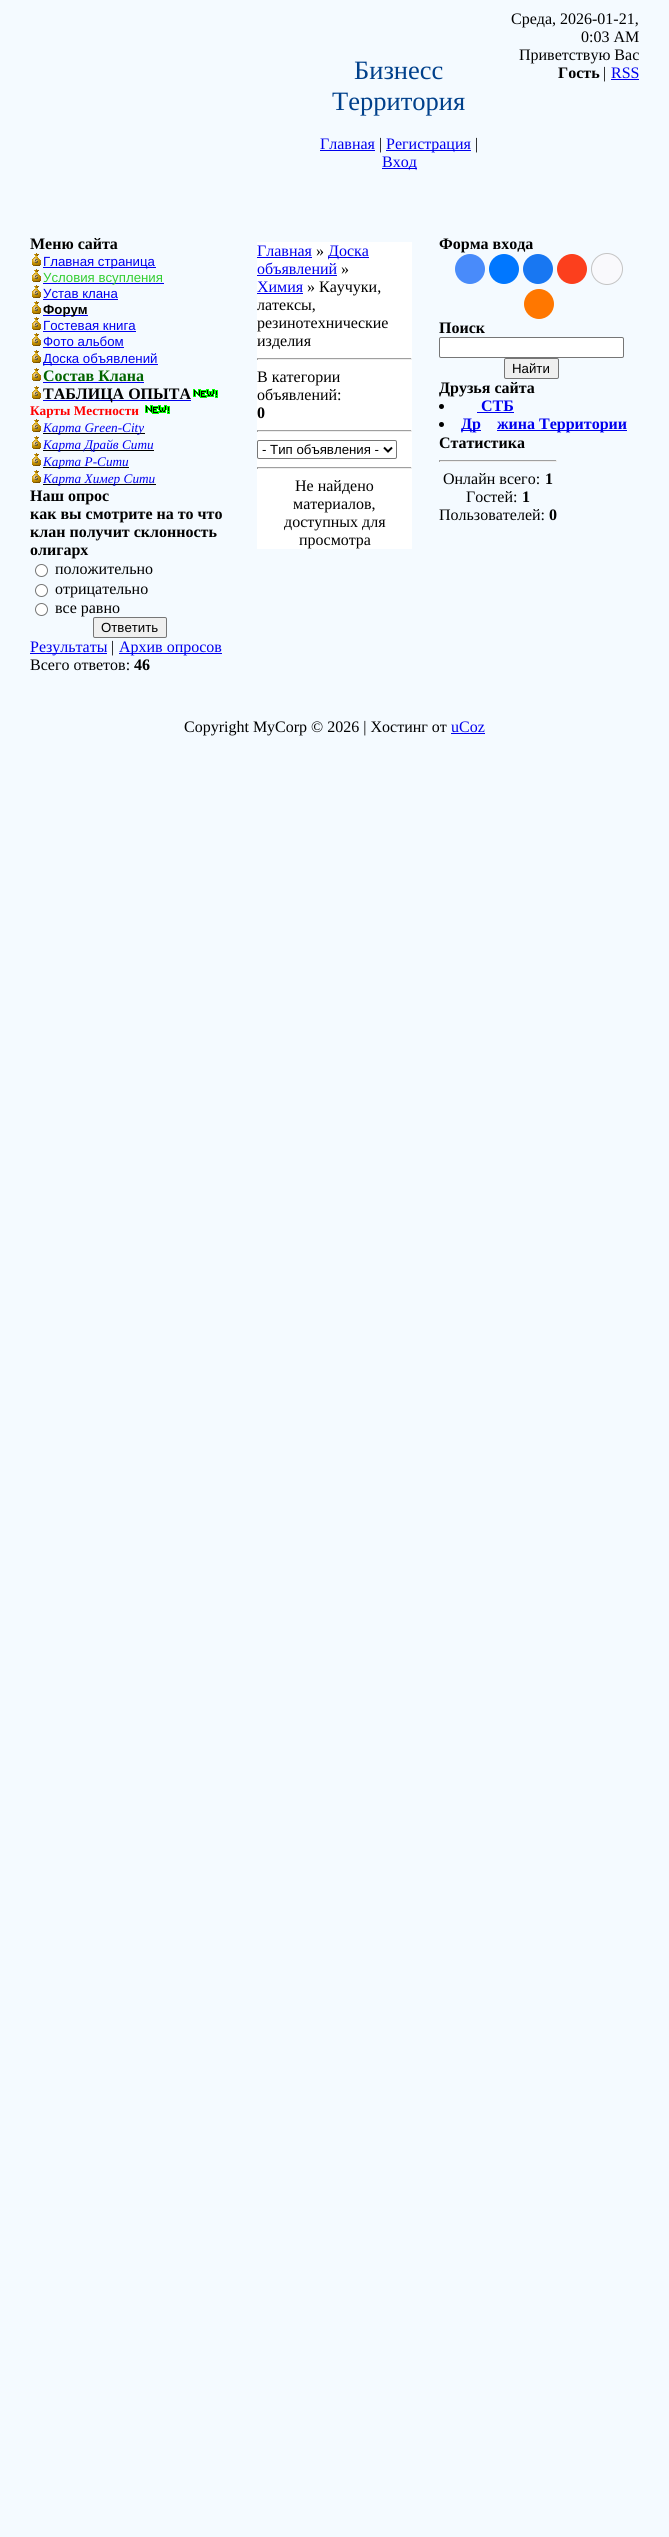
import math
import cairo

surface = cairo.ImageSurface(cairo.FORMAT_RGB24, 669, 2537)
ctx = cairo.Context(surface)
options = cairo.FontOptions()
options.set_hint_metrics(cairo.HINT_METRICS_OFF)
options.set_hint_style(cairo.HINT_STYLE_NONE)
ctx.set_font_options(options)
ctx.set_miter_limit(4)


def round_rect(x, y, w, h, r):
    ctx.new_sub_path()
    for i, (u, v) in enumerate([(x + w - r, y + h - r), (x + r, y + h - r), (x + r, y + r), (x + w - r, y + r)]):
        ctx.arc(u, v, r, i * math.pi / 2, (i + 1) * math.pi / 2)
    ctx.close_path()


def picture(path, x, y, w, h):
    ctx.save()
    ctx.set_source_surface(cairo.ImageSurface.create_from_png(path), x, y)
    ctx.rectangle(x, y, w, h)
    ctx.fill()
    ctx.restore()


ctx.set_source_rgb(0.957, 0.98, 1)
ctx.paint()
ctx.select_font_face("Liberation Serif")
ctx.set_font_size(16)
ctx.set_source_rgb(0, 0, 0)
ctx.move_to(511, 24)
ctx.show_text("Среда, 2026-01-21,")
ctx.move_to(581, 42)
ctx.show_text("0:03 AM")
ctx.move_to(519, 60)
ctx.show_text("Приветствую Вас")
ctx.select_font_face("Liberation Serif", cairo.FONT_SLANT_NORMAL, cairo.FONT_WEIGHT_BOLD)
ctx.move_to(558, 78)
ctx.show_text("Гость")
ctx.select_font_face("Liberation Serif")
ctx.move_to(603, 78)
ctx.show_text("|")
ctx.set_source_rgb(0, 0, 0.933)
ctx.move_to(611, 78)
ctx.show_text("RSS")
ctx.rectangle(611, 79, 28, 1)
ctx.fill()
ctx.set_font_size(26.5)
ctx.set_source_rgb(0, 0.251, 0.545)
ctx.move_to(354, 79)
ctx.show_text("Бизнесс")
ctx.move_to(332, 110)
ctx.show_text("Территория")
ctx.set_font_size(16)
ctx.set_source_rgb(0, 0, 0.933)
ctx.move_to(320, 149)
ctx.show_text("Главная")
ctx.rectangle(320, 150, 55, 1)
ctx.fill()
ctx.set_source_rgb(0, 0, 0)
ctx.move_to(379, 149)
ctx.show_text("|")
ctx.set_source_rgb(0, 0, 0.933)
ctx.rectangle(386, 150, 85, 1)
ctx.fill()
ctx.move_to(386, 149)
ctx.show_text("Регистрация")
ctx.set_source_rgb(0, 0, 0)
ctx.move_to(475, 149)
ctx.show_text("|")
ctx.set_source_rgb(0, 0, 0.933)
ctx.rectangle(382, 168, 35, 1)
ctx.fill()
ctx.move_to(382, 167)
ctx.show_text("Вход")
ctx.select_font_face("Liberation Serif", cairo.FONT_SLANT_NORMAL, cairo.FONT_WEIGHT_BOLD)
ctx.set_source_rgb(0, 0, 0)
ctx.move_to(30, 249)
ctx.show_text("Меню сайта")
picture("img1.png", 32, 253, 9, 13)
ctx.set_source_rgb(0, 0, 0.933)
ctx.rectangle(43, 267, 113, 1)
ctx.fill()
ctx.select_font_face("Liberation Sans")
ctx.set_font_size(13.25)
ctx.move_to(43, 266)
ctx.show_text("Главная страница")
picture("img1.png", 32, 269, 9, 13)
ctx.rectangle(43, 283, 121, 1)
ctx.fill()
ctx.set_source_rgb(0.196, 0.804, 0.196)
ctx.move_to(43, 282)
ctx.show_text("Условия всупления")
picture("img1.png", 32, 285, 9, 13)
ctx.set_source_rgb(0, 0, 0.933)
ctx.move_to(43, 298)
ctx.show_text("Устав клана")
ctx.rectangle(43, 299, 75, 1)
ctx.fill()
picture("img1.png", 32, 301, 9, 13)
ctx.rectangle(43, 315, 45, 1)
ctx.fill()
ctx.select_font_face("Liberation Sans", cairo.FONT_SLANT_NORMAL, cairo.FONT_WEIGHT_BOLD)
ctx.set_source_rgb(0, 0, 0)
ctx.move_to(43, 314)
ctx.show_text("Форум")
picture("img1.png", 32, 317, 9, 13)
ctx.select_font_face("Liberation Sans")
ctx.set_source_rgb(0, 0, 0.933)
ctx.move_to(43, 330)
ctx.show_text("Гостевая книга")
ctx.rectangle(43, 331, 93, 1)
ctx.fill()
picture("img1.png", 32, 333, 9, 13)
ctx.move_to(43, 346)
ctx.show_text("Фото альбом")
ctx.rectangle(43, 347, 81, 1)
ctx.fill()
picture("img1.png", 32, 350, 9, 13)
ctx.rectangle(43, 364, 115, 1)
ctx.fill()
ctx.move_to(43, 363)
ctx.show_text("Доска объявлений")
picture("img1.png", 32, 368, 9, 13)
ctx.select_font_face("Liberation Serif", cairo.FONT_SLANT_NORMAL, cairo.FONT_WEIGHT_BOLD)
ctx.set_font_size(16)
ctx.set_source_rgb(0, 0.392, 0)
ctx.move_to(43, 381)
ctx.show_text("Состав Клана")
ctx.set_source_rgb(0, 0, 0.933)
ctx.rectangle(43, 382, 101, 1)
ctx.fill()
picture("img1.png", 32, 386, 9, 13)
ctx.rectangle(43, 400, 148, 1)
ctx.fill()
ctx.set_source_rgb(0, 0, 0)
ctx.move_to(43, 399)
ctx.show_text("ТАБЛИЦА ОПЫТА")
picture("img2.png", 193, 389, 25, 9)
ctx.set_font_size(13.25)
ctx.set_source_rgb(1, 0, 0)
ctx.move_to(30, 415)
ctx.show_text("Карты Местности")
picture("img2.png", 145, 405, 25, 9)
picture("img1.png", 32, 419, 9, 13)
ctx.set_source_rgb(0, 0, 0)
ctx.rectangle(43, 433, 102, 1)
ctx.fill()
ctx.select_font_face("Liberation Serif", cairo.FONT_SLANT_ITALIC)
ctx.set_source_rgb(0, 0, 0.933)
ctx.move_to(43, 432)
ctx.show_text("Карта Green-City")
picture("img1.png", 32, 436, 9, 13)
ctx.set_source_rgb(0, 0, 0)
ctx.rectangle(43, 450, 111, 1)
ctx.fill()
ctx.set_source_rgb(0, 0, 0.933)
ctx.move_to(43, 449)
ctx.show_text("Карта Драйв Сити")
picture("img1.png", 32, 453, 9, 13)
ctx.set_source_rgb(0, 0, 0)
ctx.rectangle(43, 467, 86, 1)
ctx.fill()
ctx.set_source_rgb(0, 0, 0.933)
ctx.move_to(43, 466)
ctx.show_text("Карта Р-Сити")
picture("img1.png", 32, 470, 9, 13)
ctx.set_source_rgb(0, 0, 0)
ctx.rectangle(43, 484, 113, 1)
ctx.fill()
ctx.set_source_rgb(0, 0, 0.933)
ctx.move_to(43, 483)
ctx.show_text("Карта Химер Сити")
ctx.select_font_face("Liberation Serif", cairo.FONT_SLANT_NORMAL, cairo.FONT_WEIGHT_BOLD)
ctx.set_font_size(16)
ctx.set_source_rgb(0, 0, 0)
ctx.move_to(30, 501)
ctx.show_text("Наш опрос")
ctx.move_to(30, 519)
ctx.show_text("как вы смотрите на то что")
ctx.move_to(30, 537)
ctx.show_text("клан получит склонность")
ctx.move_to(30, 555)
ctx.show_text("олигарх")
ctx.set_source_rgb(1, 1, 1)
ctx.new_path()
ctx.arc(41.5, 570.5, 6, 0, 2 * math.pi)
ctx.fill_preserve()
ctx.set_source_rgb(0.463, 0.463, 0.463)
ctx.set_line_width(1)
ctx.stroke()
ctx.select_font_face("Liberation Serif")
ctx.set_source_rgb(0, 0, 0)
ctx.move_to(55, 574)
ctx.show_text("положительно")
ctx.set_source_rgb(1, 1, 1)
ctx.new_path()
ctx.arc(41.5, 590.5, 6, 0, 2 * math.pi)
ctx.fill_preserve()
ctx.set_source_rgb(0.463, 0.463, 0.463)
ctx.stroke()
ctx.set_source_rgb(0, 0, 0)
ctx.move_to(55, 594)
ctx.show_text("отрицательно")
ctx.set_source_rgb(1, 1, 1)
ctx.new_path()
ctx.arc(41.5, 609.5, 6, 0, 2 * math.pi)
ctx.fill_preserve()
ctx.set_source_rgb(0.463, 0.463, 0.463)
ctx.stroke()
ctx.set_source_rgb(0, 0, 0)
ctx.move_to(55, 613)
ctx.show_text("все равно")
ctx.set_source_rgb(0.937, 0.937, 0.937)
round_rect(93.5, 617.5, 73, 20, 1.5)
ctx.fill_preserve()
ctx.set_source_rgb(0.463, 0.463, 0.463)
ctx.stroke()
ctx.select_font_face("Liberation Sans")
ctx.set_font_size(13.25)
ctx.set_source_rgb(0, 0, 0)
ctx.move_to(101, 632)
ctx.show_text("Ответить")
ctx.set_source_rgb(0, 0, 0.933)
ctx.rectangle(30, 653, 77, 1)
ctx.fill()
ctx.select_font_face("Liberation Serif")
ctx.set_font_size(16)
ctx.move_to(30, 652)
ctx.show_text("Результаты")
ctx.set_source_rgb(0, 0, 0)
ctx.move_to(111, 652)
ctx.show_text("|")
ctx.set_source_rgb(0, 0, 0.933)
ctx.rectangle(119, 653, 103, 1)
ctx.fill()
ctx.move_to(119, 652)
ctx.show_text("Архив опросов")
ctx.set_source_rgb(0, 0, 0)
ctx.move_to(30, 670)
ctx.show_text("Всего ответов:")
ctx.select_font_face("Liberation Serif", cairo.FONT_SLANT_NORMAL, cairo.FONT_WEIGHT_BOLD)
ctx.move_to(134, 670)
ctx.show_text("46")
ctx.set_source_rgb(1, 1, 1)
ctx.rectangle(257, 242, 155, 307)
ctx.fill()
ctx.select_font_face("Liberation Serif")
ctx.set_source_rgb(0, 0, 0.933)
ctx.move_to(257, 256)
ctx.show_text("Главная")
ctx.rectangle(257, 257, 55, 1)
ctx.fill()
ctx.set_source_rgb(0, 0, 0)
ctx.move_to(316, 256)
ctx.show_text("»")
ctx.set_source_rgb(0, 0, 0.933)
ctx.rectangle(328, 257, 41, 1)
ctx.fill()
ctx.move_to(328, 256)
ctx.show_text("Доска")
ctx.move_to(257, 274)
ctx.show_text("объявлений")
ctx.rectangle(257, 275, 80, 1)
ctx.fill()
ctx.set_source_rgb(0, 0, 0)
ctx.move_to(341, 274)
ctx.show_text("»")
ctx.set_source_rgb(0, 0, 0.933)
ctx.move_to(257, 292)
ctx.show_text("Химия")
ctx.rectangle(257, 293, 46, 1)
ctx.fill()
ctx.set_source_rgb(0, 0, 0)
ctx.move_to(307, 292)
ctx.show_text("» Каучуки,")
ctx.move_to(257, 310)
ctx.show_text("латексы,")
ctx.move_to(257, 328)
ctx.show_text("резинотехнические")
ctx.move_to(257, 346)
ctx.show_text("изделия")
ctx.set_source_rgb(0.624, 0.624, 0.624)
ctx.rectangle(257, 358, 155, 1)
ctx.fill()
ctx.set_source_rgb(0.933, 0.933, 0.933)
ctx.rectangle(411, 358, 1, 2)
ctx.fill()
ctx.rectangle(257, 359, 155, 1)
ctx.fill()
ctx.set_source_rgb(0.624, 0.624, 0.624)
ctx.rectangle(257, 358, 1, 2)
ctx.fill()
ctx.set_source_rgb(0, 0, 0)
ctx.move_to(257, 382)
ctx.show_text("В категории")
ctx.move_to(257, 400)
ctx.show_text("объявлений:")
ctx.select_font_face("Liberation Serif", cairo.FONT_SLANT_NORMAL, cairo.FONT_WEIGHT_BOLD)
ctx.move_to(257, 418)
ctx.show_text("0")
ctx.set_source_rgb(0.624, 0.624, 0.624)
ctx.rectangle(257, 430, 155, 1)
ctx.fill()
ctx.set_source_rgb(0.933, 0.933, 0.933)
ctx.rectangle(411, 430, 1, 2)
ctx.fill()
ctx.rectangle(257, 431, 155, 1)
ctx.fill()
ctx.set_source_rgb(0.624, 0.624, 0.624)
ctx.rectangle(257, 430, 1, 2)
ctx.fill()
round_rect(257.5, 440.5, 139, 18, 1.5)
ctx.set_source_rgb(0.463, 0.463, 0.463)
ctx.stroke()
ctx.new_path()
ctx.move_to(384, 447.5)
ctx.line_to(388, 451.5)
ctx.line_to(392, 447.5)
ctx.set_source_rgb(0, 0, 0)
ctx.set_line_width(2)
ctx.stroke()
ctx.select_font_face("Liberation Sans")
ctx.set_font_size(13.25)
ctx.move_to(262, 454)
ctx.show_text("- Тип объявления -")
ctx.set_source_rgb(0.624, 0.624, 0.624)
ctx.rectangle(257, 467, 155, 1)
ctx.fill()
ctx.set_source_rgb(0.933, 0.933, 0.933)
ctx.rectangle(411, 467, 1, 2)
ctx.fill()
ctx.rectangle(257, 468, 155, 1)
ctx.fill()
ctx.set_source_rgb(0.624, 0.624, 0.624)
ctx.rectangle(257, 467, 1, 2)
ctx.fill()
ctx.select_font_face("Liberation Serif")
ctx.set_font_size(16)
ctx.set_source_rgb(0, 0, 0)
ctx.move_to(295, 491)
ctx.show_text("Не найдено")
ctx.move_to(293, 509)
ctx.show_text("материалов,")
ctx.move_to(284, 527)
ctx.show_text("доступных для")
ctx.move_to(299, 545)
ctx.show_text("просмотра")
ctx.select_font_face("Liberation Serif", cairo.FONT_SLANT_NORMAL, cairo.FONT_WEIGHT_BOLD)
ctx.move_to(439, 249)
ctx.show_text("Форма входа")
ctx.set_source_rgb(0.286, 0.545, 0.98)
ctx.new_path()
ctx.arc(470, 269, 15, 0, 2 * math.pi)
ctx.fill()
ctx.set_source_rgb(0, 0.467, 1)
ctx.arc(504, 269, 15, 0, 2 * math.pi)
ctx.fill()
ctx.set_source_rgb(0.094, 0.467, 0.949)
ctx.arc(538, 269, 15, 0, 2 * math.pi)
ctx.fill()
ctx.set_source_rgb(0.988, 0.247, 0.114)
ctx.arc(572, 269, 15, 0, 2 * math.pi)
ctx.fill()
ctx.set_source_rgb(0.973, 0.973, 0.988)
ctx.arc(607, 269, 15.5, 0, 2 * math.pi)
ctx.fill_preserve()
ctx.set_source_rgb(0.769, 0.769, 0.769)
ctx.set_line_width(1)
ctx.stroke()
ctx.set_source_rgb(1, 0.467, 0)
ctx.arc(539, 304, 15, 0, 2 * math.pi)
ctx.fill()
ctx.set_source_rgb(0, 0, 0)
ctx.move_to(439, 333)
ctx.show_text("Поиск")
ctx.set_source_rgb(1, 1, 1)
round_rect(439.5, 337.5, 184, 20, 1.5)
ctx.fill_preserve()
ctx.set_source_rgb(0.463, 0.463, 0.463)
ctx.stroke()
ctx.set_source_rgb(0.937, 0.937, 0.937)
round_rect(504.5, 358.5, 54, 20, 1.5)
ctx.fill_preserve()
ctx.set_source_rgb(0.463, 0.463, 0.463)
ctx.stroke()
ctx.select_font_face("Liberation Sans")
ctx.set_font_size(13.25)
ctx.set_source_rgb(0, 0, 0)
ctx.move_to(512, 373)
ctx.show_text("Найти")
ctx.select_font_face("Liberation Serif", cairo.FONT_SLANT_NORMAL, cairo.FONT_WEIGHT_BOLD)
ctx.set_font_size(16)
ctx.move_to(439, 393)
ctx.show_text("Друзья сайта")
ctx.new_path()
ctx.arc(441.5, 406.5, 2.5, 0, 2 * math.pi)
ctx.fill()
ctx.set_source_rgb(0, 0, 0.933)
ctx.move_to(481, 411)
ctx.show_text("СТБ")
ctx.rectangle(477, 412, 37, 1)
ctx.fill()
ctx.set_source_rgb(0, 0, 0)
ctx.arc(441.5, 424.5, 2.5, 0, 2 * math.pi)
ctx.fill()
ctx.set_source_rgb(0, 0, 0.933)
ctx.rectangle(461, 430, 20, 1)
ctx.fill()
ctx.move_to(461, 429)
ctx.show_text("Др")
ctx.rectangle(497, 430, 130, 1)
ctx.fill()
ctx.move_to(497, 429)
ctx.show_text("жина Территории")
ctx.set_source_rgb(0, 0, 0)
ctx.move_to(439, 448)
ctx.show_text("Статистика")
ctx.set_source_rgb(0.624, 0.624, 0.624)
ctx.rectangle(439, 460, 118, 1)
ctx.fill()
ctx.set_source_rgb(0.933, 0.933, 0.933)
ctx.rectangle(556, 460, 1, 2)
ctx.fill()
ctx.rectangle(439, 461, 118, 1)
ctx.fill()
ctx.set_source_rgb(0.624, 0.624, 0.624)
ctx.rectangle(439, 460, 1, 2)
ctx.fill()
ctx.select_font_face("Liberation Serif")
ctx.set_source_rgb(0, 0, 0)
ctx.move_to(443, 484)
ctx.show_text("Онлайн всего:")
ctx.select_font_face("Liberation Serif", cairo.FONT_SLANT_NORMAL, cairo.FONT_WEIGHT_BOLD)
ctx.move_to(545, 484)
ctx.show_text("1")
ctx.select_font_face("Liberation Serif")
ctx.move_to(466, 502)
ctx.show_text("Гостей:")
ctx.select_font_face("Liberation Serif", cairo.FONT_SLANT_NORMAL, cairo.FONT_WEIGHT_BOLD)
ctx.move_to(522, 502)
ctx.show_text("1")
ctx.select_font_face("Liberation Serif")
ctx.move_to(439, 520)
ctx.show_text("Пользователей:")
ctx.select_font_face("Liberation Serif", cairo.FONT_SLANT_NORMAL, cairo.FONT_WEIGHT_BOLD)
ctx.move_to(549, 520)
ctx.show_text("0")
ctx.select_font_face("Liberation Serif")
ctx.move_to(184, 732)
ctx.show_text("Copyright MyCorp © 2026 | Хостинг от")
ctx.set_source_rgb(0, 0, 0.933)
ctx.move_to(451, 732)
ctx.show_text("uCoz")
ctx.rectangle(451, 733, 34, 1)
ctx.fill()
surface.write_to_png("page.png")
